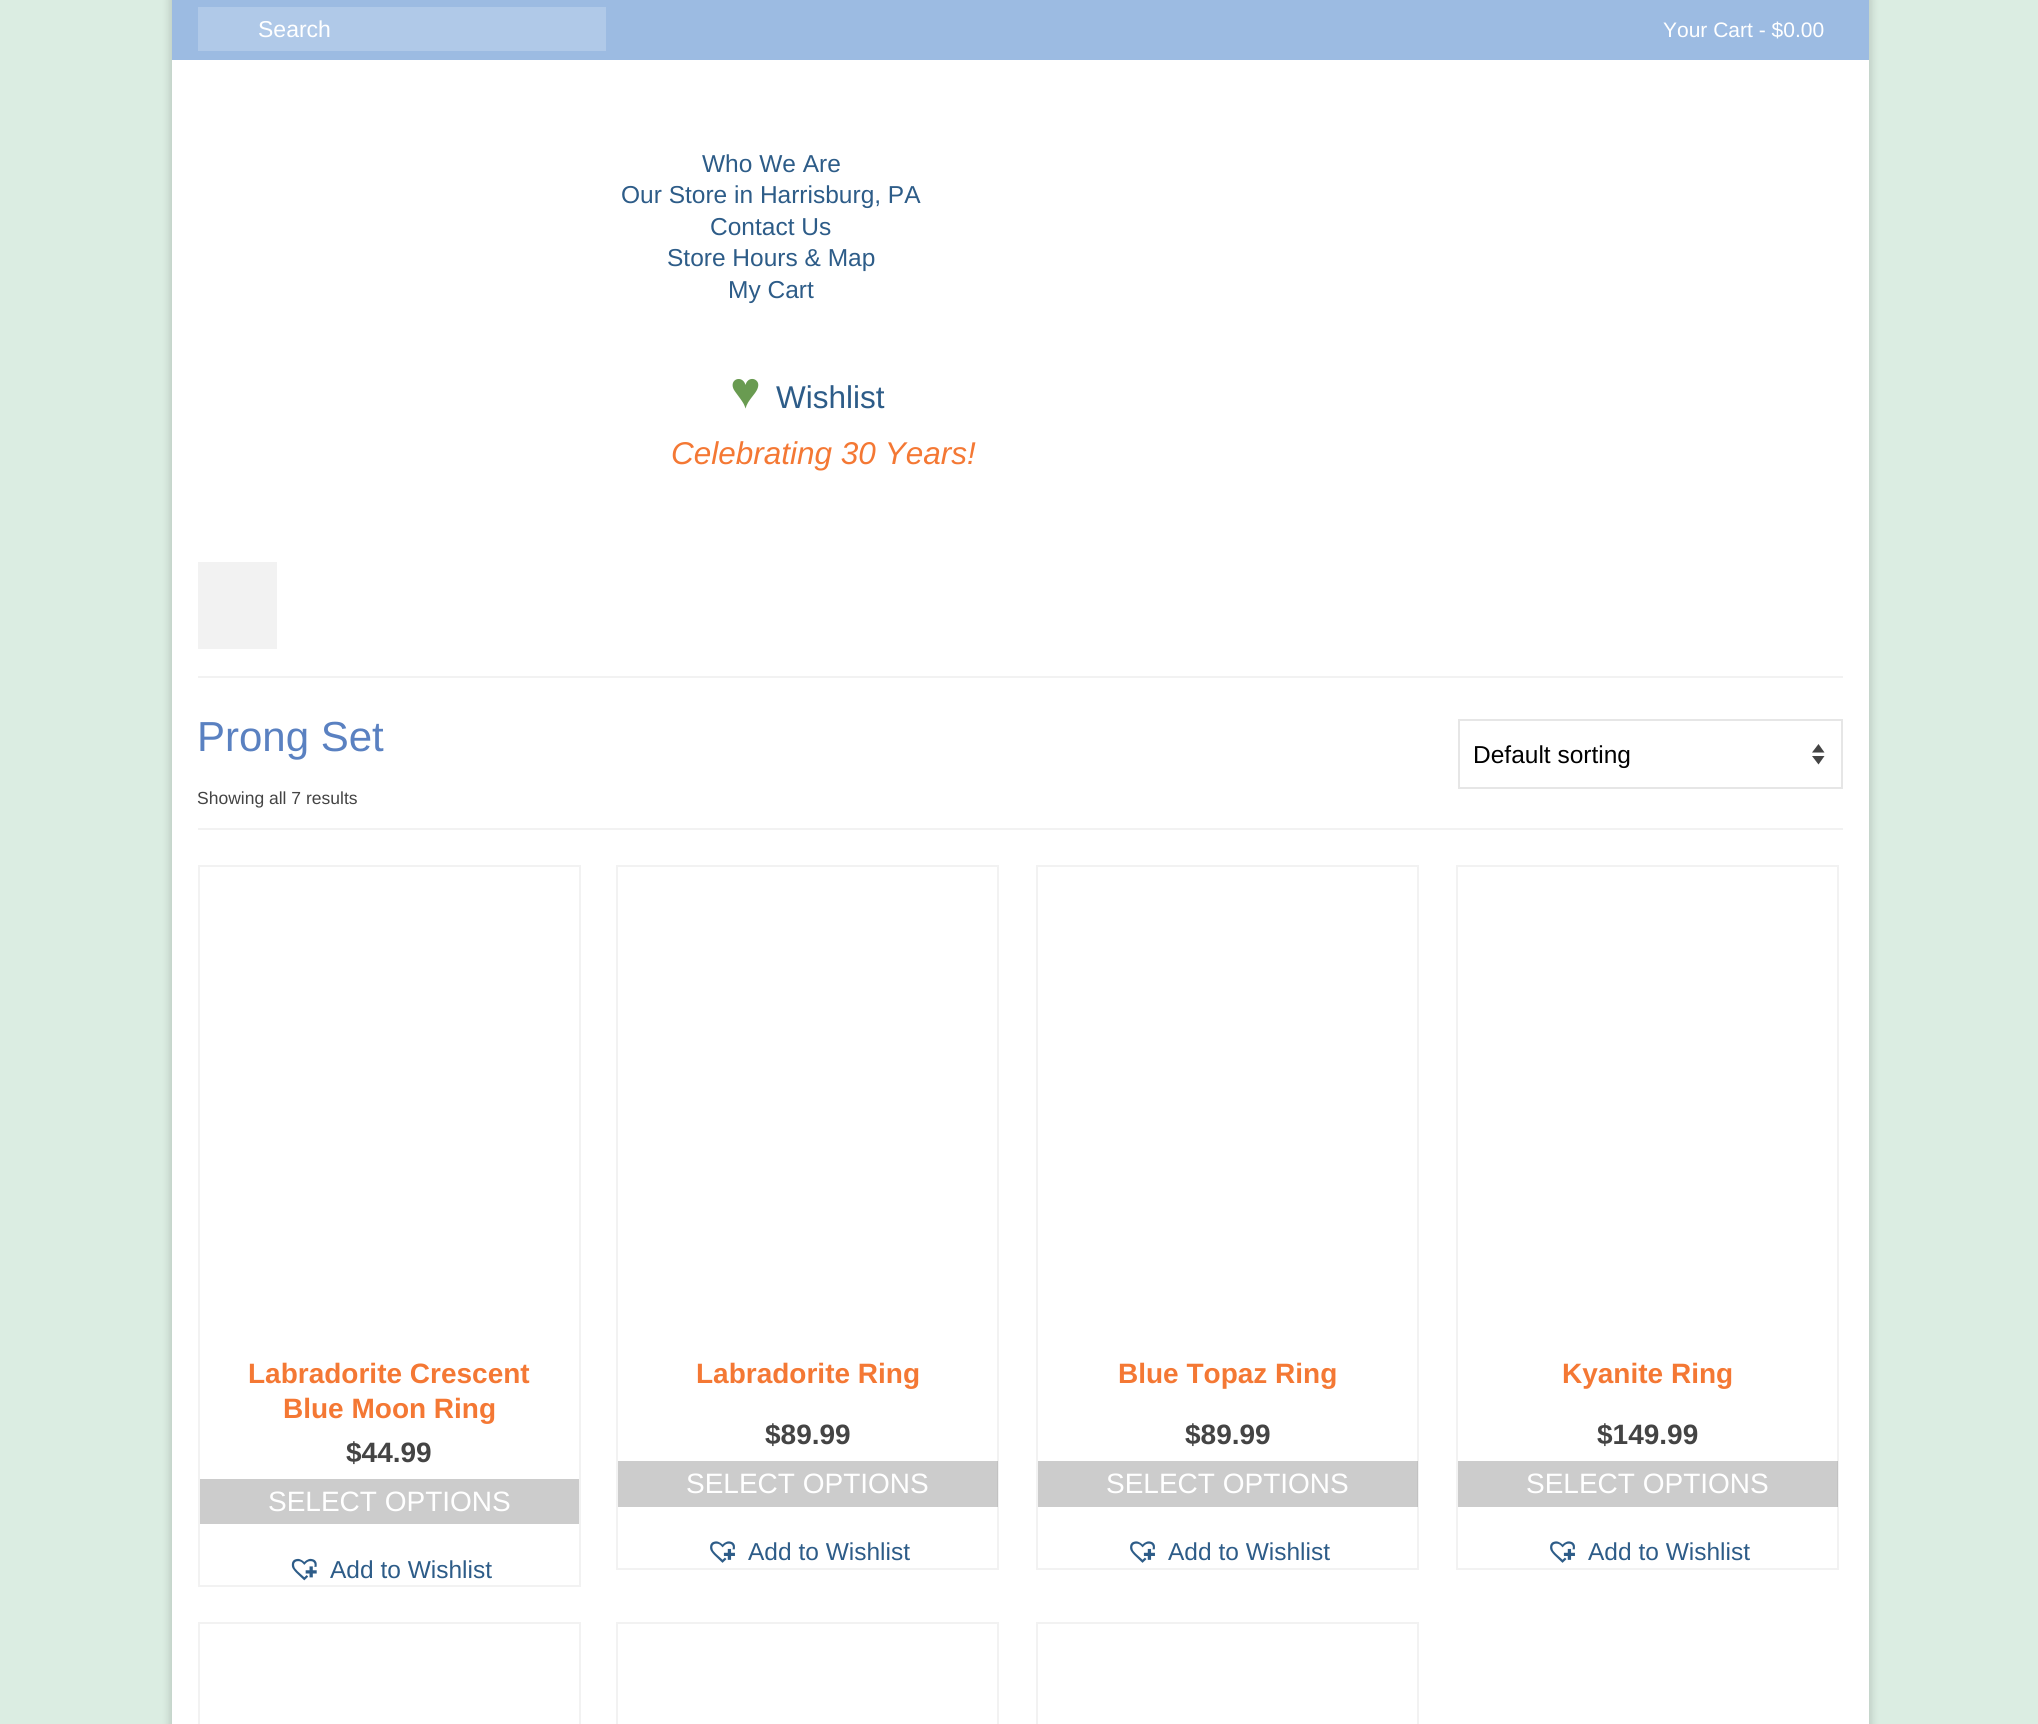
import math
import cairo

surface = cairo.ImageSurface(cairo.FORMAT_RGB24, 2038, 1724)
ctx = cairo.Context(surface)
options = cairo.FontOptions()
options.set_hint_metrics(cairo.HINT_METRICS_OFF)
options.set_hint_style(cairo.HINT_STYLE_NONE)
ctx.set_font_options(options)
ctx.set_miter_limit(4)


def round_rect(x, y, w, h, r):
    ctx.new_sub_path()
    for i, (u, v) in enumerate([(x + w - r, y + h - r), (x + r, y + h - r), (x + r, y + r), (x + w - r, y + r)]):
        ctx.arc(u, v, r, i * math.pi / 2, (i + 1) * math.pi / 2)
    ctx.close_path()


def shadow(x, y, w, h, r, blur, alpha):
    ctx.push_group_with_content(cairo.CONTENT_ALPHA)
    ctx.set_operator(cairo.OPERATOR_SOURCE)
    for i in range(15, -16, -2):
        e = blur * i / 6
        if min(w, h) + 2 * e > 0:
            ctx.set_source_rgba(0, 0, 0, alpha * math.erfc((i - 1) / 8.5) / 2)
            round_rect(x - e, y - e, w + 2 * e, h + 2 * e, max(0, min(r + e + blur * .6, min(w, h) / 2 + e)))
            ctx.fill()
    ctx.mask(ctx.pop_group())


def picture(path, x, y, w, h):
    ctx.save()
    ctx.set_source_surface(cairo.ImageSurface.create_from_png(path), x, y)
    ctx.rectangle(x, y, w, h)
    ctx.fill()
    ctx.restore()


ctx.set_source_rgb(0.859, 0.929, 0.886)
ctx.paint()
ctx.set_source_rgb(0, 0, 0)
shadow(170, -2, 1701, 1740, 0, 4.5, 0.16)
ctx.set_source_rgb(1, 1, 1)
ctx.rectangle(172, 60, 1697, 1664)
ctx.fill()
ctx.set_source_rgb(0.612, 0.733, 0.886)
ctx.rectangle(172, 0, 1697, 60)
ctx.fill()
ctx.set_source_rgb(0.69, 0.788, 0.91)
ctx.rectangle(198, 7, 408, 44)
ctx.fill()
ctx.select_font_face("Liberation Sans")
ctx.set_font_size(23)
ctx.set_source_rgb(1, 1, 1)
ctx.move_to(258, 37)
ctx.show_text("Search")
ctx.set_font_size(21)
ctx.move_to(1663, 37)
ctx.show_text("Your Cart - $0.00")
ctx.set_font_size(24.5)
ctx.set_source_rgb(0.176, 0.361, 0.533)
ctx.move_to(702, 172)
ctx.show_text("Who We Are")
ctx.move_to(621, 203)
ctx.show_text("Our Store in Harrisburg, PA")
ctx.move_to(710, 235)
ctx.show_text("Contact Us")
ctx.move_to(667, 266)
ctx.show_text("Store Hours & Map")
ctx.move_to(728, 298)
ctx.show_text("My Cart")
ctx.set_font_size(52)
ctx.set_source_rgb(0.412, 0.608, 0.318)
ctx.move_to(730, 408)
ctx.show_text("♥")
ctx.set_font_size(31.5)
ctx.set_source_rgb(0.176, 0.361, 0.533)
ctx.move_to(776, 408)
ctx.show_text("Wishlist")
ctx.select_font_face("Liberation Sans", cairo.FONT_SLANT_ITALIC)
ctx.set_source_rgb(0.957, 0.471, 0.204)
ctx.move_to(671, 464)
ctx.show_text("Celebrating 30 Years!")
ctx.set_source_rgb(0.949, 0.949, 0.949)
ctx.rectangle(198, 562, 79, 87)
ctx.fill()
ctx.rectangle(198, 676, 1645, 2)
ctx.fill()
ctx.rectangle(198, 828, 1645, 2)
ctx.fill()
ctx.select_font_face("Liberation Sans")
ctx.set_font_size(42)
ctx.set_source_rgb(0.353, 0.506, 0.757)
ctx.move_to(197, 751)
ctx.show_text("Prong Set")
ctx.set_font_size(17.5)
ctx.set_source_rgb(0.267, 0.267, 0.267)
ctx.move_to(197, 804)
ctx.show_text("Showing all 7 results")
ctx.new_path()
ctx.move_to(1812, 752.5)
ctx.line_to(1818.5, 744)
ctx.line_to(1824.5, 752.5)
ctx.close_path()
ctx.move_to(1824.5, 756)
ctx.line_to(1818.5, 764.5)
ctx.line_to(1812, 756)
ctx.close_path()
ctx.fill()
ctx.rectangle(1459, 720, 383, 68)
ctx.set_source_rgb(0.902, 0.902, 0.902)
ctx.stroke()
ctx.set_font_size(24.5)
ctx.set_source_rgb(0, 0, 0)
ctx.move_to(1473, 763)
ctx.show_text("Default sorting")
ctx.rectangle(199, 866, 381, 720)
ctx.set_source_rgb(0.949, 0.949, 0.949)
ctx.stroke()
ctx.select_font_face("Liberation Sans", cairo.FONT_SLANT_NORMAL, cairo.FONT_WEIGHT_BOLD)
ctx.set_font_size(28)
ctx.set_source_rgb(0.957, 0.471, 0.204)
ctx.move_to(248, 1383)
ctx.show_text("Labradorite Crescent")
ctx.move_to(283, 1418)
ctx.show_text("Blue Moon Ring")
ctx.set_source_rgb(0.267, 0.267, 0.267)
ctx.move_to(346, 1462)
ctx.show_text("$44.99")
ctx.set_source_rgb(0.8, 0.8, 0.8)
ctx.rectangle(200, 1479, 379, 45)
ctx.fill()
ctx.select_font_face("Liberation Sans")
ctx.set_source_rgb(1, 1, 1)
ctx.move_to(268, 1511)
ctx.show_text("SELECT OPTIONS")
picture("img1.png", 291, 1558, 26, 23)
ctx.set_font_size(24.5)
ctx.set_source_rgb(0.176, 0.361, 0.533)
ctx.move_to(330, 1578)
ctx.show_text("Add to Wishlist")
ctx.rectangle(617, 866, 381, 703)
ctx.set_source_rgb(0.949, 0.949, 0.949)
ctx.stroke()
ctx.select_font_face("Liberation Sans", cairo.FONT_SLANT_NORMAL, cairo.FONT_WEIGHT_BOLD)
ctx.set_font_size(28)
ctx.set_source_rgb(0.957, 0.471, 0.204)
ctx.move_to(696, 1383)
ctx.show_text("Labradorite Ring")
ctx.set_source_rgb(0.267, 0.267, 0.267)
ctx.move_to(765, 1444)
ctx.show_text("$89.99")
ctx.set_source_rgba(0, 0, 0, 0.2)
ctx.rectangle(618, 1461, 380, 46)
ctx.fill()
ctx.select_font_face("Liberation Sans")
ctx.set_source_rgb(1, 1, 1)
ctx.move_to(686, 1493)
ctx.show_text("SELECT OPTIONS")
picture("img2.png", 710, 1541, 25, 22)
ctx.set_font_size(24.5)
ctx.set_source_rgb(0.176, 0.361, 0.533)
ctx.move_to(748, 1560)
ctx.show_text("Add to Wishlist")
ctx.rectangle(1037, 866, 381, 703)
ctx.set_source_rgb(0.949, 0.949, 0.949)
ctx.stroke()
ctx.select_font_face("Liberation Sans", cairo.FONT_SLANT_NORMAL, cairo.FONT_WEIGHT_BOLD)
ctx.set_font_size(28)
ctx.set_source_rgb(0.957, 0.471, 0.204)
ctx.move_to(1118, 1383)
ctx.show_text("Blue Topaz Ring")
ctx.set_source_rgb(0.267, 0.267, 0.267)
ctx.move_to(1185, 1444)
ctx.show_text("$89.99")
ctx.set_source_rgba(0, 0, 0, 0.2)
ctx.rectangle(1038, 1461, 380, 46)
ctx.fill()
ctx.select_font_face("Liberation Sans")
ctx.set_source_rgb(1, 1, 1)
ctx.move_to(1106, 1493)
ctx.show_text("SELECT OPTIONS")
picture("img2.png", 1130, 1541, 25, 22)
ctx.set_font_size(24.5)
ctx.set_source_rgb(0.176, 0.361, 0.533)
ctx.move_to(1168, 1560)
ctx.show_text("Add to Wishlist")
ctx.rectangle(1457, 866, 381, 703)
ctx.set_source_rgb(0.949, 0.949, 0.949)
ctx.stroke()
ctx.select_font_face("Liberation Sans", cairo.FONT_SLANT_NORMAL, cairo.FONT_WEIGHT_BOLD)
ctx.set_font_size(28)
ctx.set_source_rgb(0.957, 0.471, 0.204)
ctx.move_to(1562, 1383)
ctx.show_text("Kyanite Ring")
ctx.set_source_rgb(0.267, 0.267, 0.267)
ctx.move_to(1597, 1444)
ctx.show_text("$149.99")
ctx.set_source_rgba(0, 0, 0, 0.2)
ctx.rectangle(1458, 1461, 380, 46)
ctx.fill()
ctx.select_font_face("Liberation Sans")
ctx.set_source_rgb(1, 1, 1)
ctx.move_to(1526, 1493)
ctx.show_text("SELECT OPTIONS")
picture("img2.png", 1550, 1541, 25, 22)
ctx.set_font_size(24.5)
ctx.set_source_rgb(0.176, 0.361, 0.533)
ctx.move_to(1588, 1560)
ctx.show_text("Add to Wishlist")
ctx.rectangle(199, 1623, 381, 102)
ctx.set_source_rgb(0.949, 0.949, 0.949)
ctx.stroke()
ctx.rectangle(617, 1623, 381, 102)
ctx.stroke()
ctx.rectangle(1037, 1623, 381, 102)
ctx.stroke()
surface.write_to_png("page.png")
